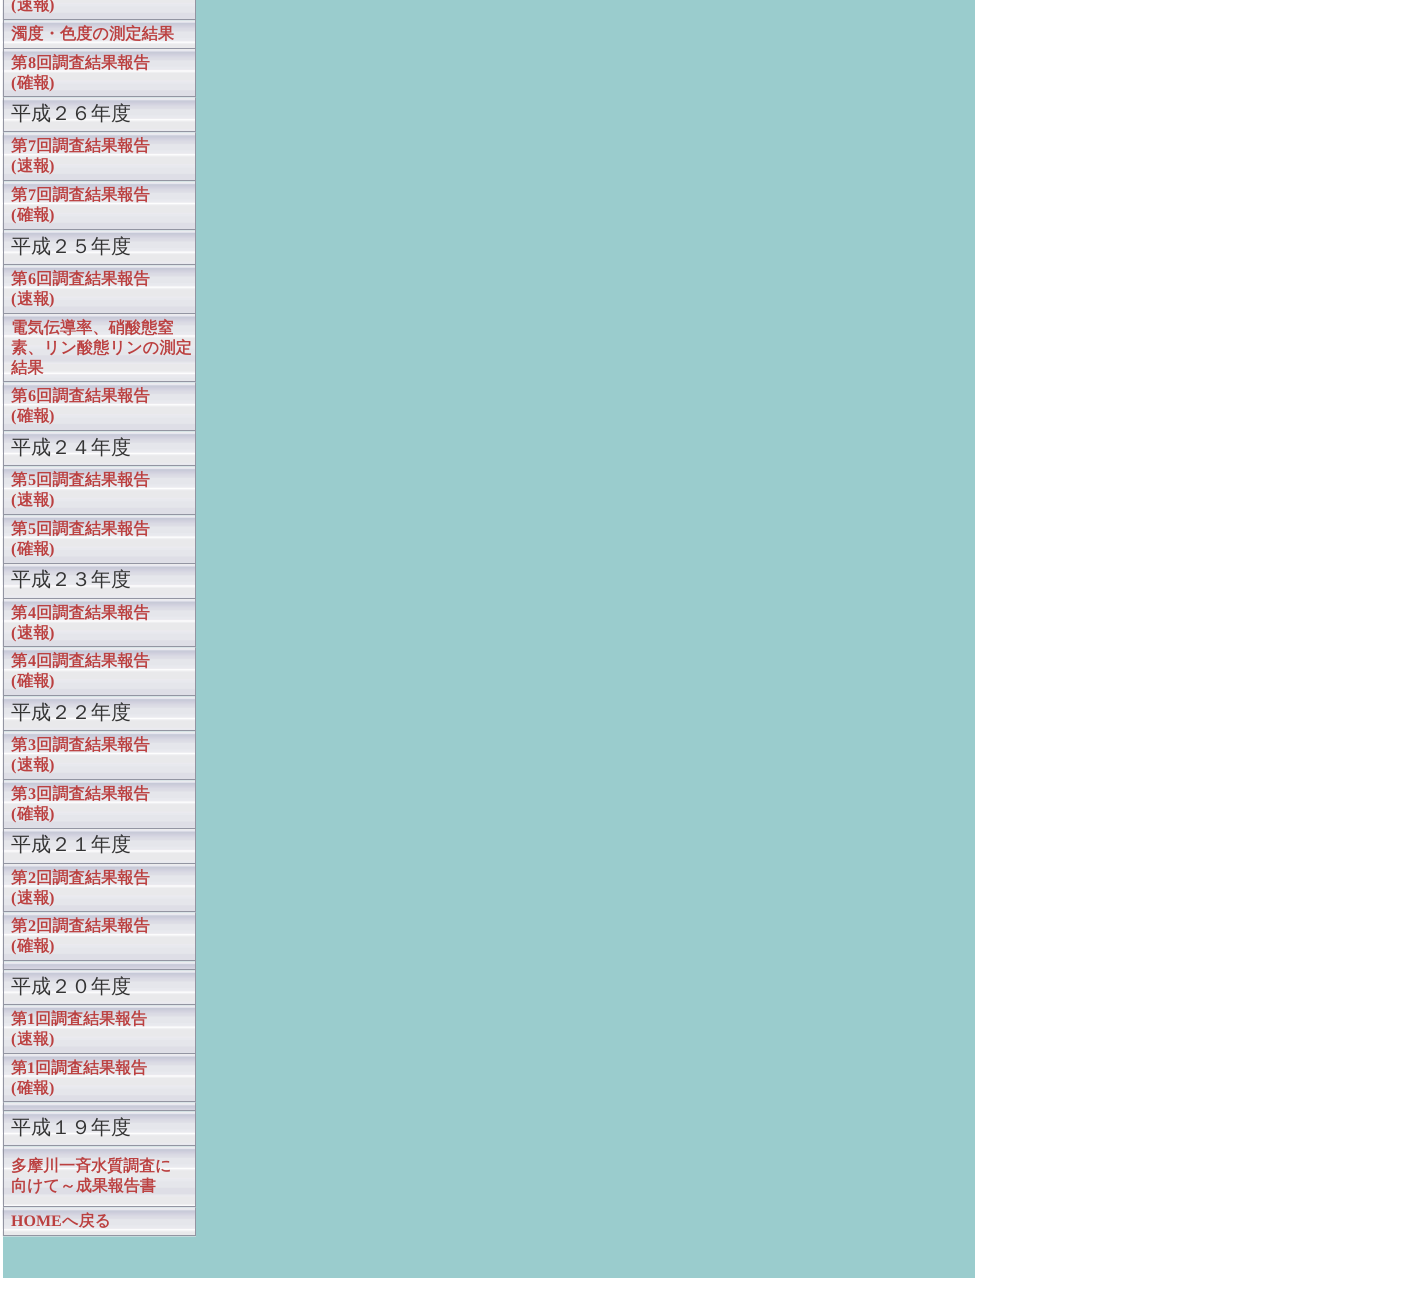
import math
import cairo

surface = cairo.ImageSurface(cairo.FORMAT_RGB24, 1401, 1308)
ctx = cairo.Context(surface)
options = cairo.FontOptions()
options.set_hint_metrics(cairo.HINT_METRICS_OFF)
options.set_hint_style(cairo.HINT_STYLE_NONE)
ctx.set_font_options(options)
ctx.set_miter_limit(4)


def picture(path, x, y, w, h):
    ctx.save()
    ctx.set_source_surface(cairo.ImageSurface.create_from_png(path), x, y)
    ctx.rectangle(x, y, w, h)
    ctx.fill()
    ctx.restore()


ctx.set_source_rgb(1, 1, 1)
ctx.paint()
ctx.set_source_rgb(0.604, 0.8, 0.804)
ctx.rectangle(3, 20, 193, 1258)
ctx.fill()
picture("img1.png", 2, 0, 193, 21)
ctx.set_source_rgb(0.576, 0.584, 0.635)
ctx.rectangle(195, 0, 1, 98)
ctx.fill()
ctx.rectangle(3, 19, 193, 1)
ctx.fill()
ctx.rectangle(3, 0, 1, 20)
ctx.fill()
ctx.select_font_face("Liberation Serif", cairo.FONT_SLANT_NORMAL, cairo.FONT_WEIGHT_BOLD)
ctx.set_font_size(16.25)
ctx.set_source_rgb(0.733, 0.251, 0.251)
ctx.move_to(11, 10)
ctx.show_text("(")
ctx.select_font_face("WenQuanYi Zen Hei", cairo.FONT_SLANT_NORMAL, cairo.FONT_WEIGHT_BOLD)
ctx.move_to(17, 10)
ctx.show_text("速報")
ctx.select_font_face("Liberation Serif", cairo.FONT_SLANT_NORMAL, cairo.FONT_WEIGHT_BOLD)
ctx.move_to(49, 10)
ctx.show_text(")")
picture("img2.png", 2, 20, 193, 29)
ctx.set_source_rgb(0.576, 0.584, 0.635)
ctx.rectangle(3, 48, 193, 1)
ctx.fill()
ctx.rectangle(3, 20, 1, 29)
ctx.fill()
ctx.select_font_face("WenQuanYi Zen Hei", cairo.FONT_SLANT_NORMAL, cairo.FONT_WEIGHT_BOLD)
ctx.set_source_rgb(0.733, 0.251, 0.251)
ctx.move_to(11, 39)
ctx.show_text("濁度・色度の測定結果")
picture("img3.png", 2, 49, 193, 49)
ctx.set_source_rgb(0.576, 0.584, 0.635)
ctx.rectangle(3, 96, 193, 1)
ctx.fill()
ctx.rectangle(3, 49, 1, 49)
ctx.fill()
ctx.set_source_rgb(0.733, 0.251, 0.251)
ctx.move_to(11, 68)
ctx.show_text("第")
ctx.select_font_face("Liberation Serif", cairo.FONT_SLANT_NORMAL, cairo.FONT_WEIGHT_BOLD)
ctx.move_to(28, 68)
ctx.show_text("8")
ctx.select_font_face("WenQuanYi Zen Hei", cairo.FONT_SLANT_NORMAL, cairo.FONT_WEIGHT_BOLD)
ctx.move_to(36, 68)
ctx.show_text("回調査結果報告")
ctx.select_font_face("Liberation Serif", cairo.FONT_SLANT_NORMAL, cairo.FONT_WEIGHT_BOLD)
ctx.move_to(11, 88)
ctx.show_text("(")
ctx.select_font_face("WenQuanYi Zen Hei", cairo.FONT_SLANT_NORMAL, cairo.FONT_WEIGHT_BOLD)
ctx.move_to(17, 88)
ctx.show_text("確報")
ctx.select_font_face("Liberation Serif", cairo.FONT_SLANT_NORMAL, cairo.FONT_WEIGHT_BOLD)
ctx.move_to(49, 88)
ctx.show_text(")")
picture("img4.png", 2, 97, 194, 36)
ctx.set_source_rgb(0.576, 0.584, 0.635)
ctx.rectangle(195, 98, 1, 35)
ctx.fill()
ctx.rectangle(3, 131, 193, 1)
ctx.fill()
ctx.rectangle(3, 98, 1, 35)
ctx.fill()
ctx.select_font_face("WenQuanYi Zen Hei Medium")
ctx.set_font_size(20)
ctx.set_source_rgb(0.2, 0.2, 0.2)
ctx.move_to(11, 120)
ctx.show_text("平成２６年度")
picture("img5.png", 2, 132, 194, 50)
ctx.set_source_rgb(0.576, 0.584, 0.635)
ctx.rectangle(195, 133, 1, 250)
ctx.fill()
ctx.rectangle(3, 180, 193, 1)
ctx.fill()
ctx.rectangle(3, 133, 1, 48)
ctx.fill()
ctx.select_font_face("WenQuanYi Zen Hei", cairo.FONT_SLANT_NORMAL, cairo.FONT_WEIGHT_BOLD)
ctx.set_font_size(16.25)
ctx.set_source_rgb(0.733, 0.251, 0.251)
ctx.move_to(11, 151)
ctx.show_text("第")
ctx.select_font_face("Liberation Serif", cairo.FONT_SLANT_NORMAL, cairo.FONT_WEIGHT_BOLD)
ctx.move_to(28, 151)
ctx.show_text("7")
ctx.select_font_face("WenQuanYi Zen Hei", cairo.FONT_SLANT_NORMAL, cairo.FONT_WEIGHT_BOLD)
ctx.move_to(36, 151)
ctx.show_text("回調査結果報告")
ctx.select_font_face("Liberation Serif", cairo.FONT_SLANT_NORMAL, cairo.FONT_WEIGHT_BOLD)
ctx.move_to(11, 171)
ctx.show_text("(")
ctx.select_font_face("WenQuanYi Zen Hei", cairo.FONT_SLANT_NORMAL, cairo.FONT_WEIGHT_BOLD)
ctx.move_to(17, 171)
ctx.show_text("速報")
ctx.select_font_face("Liberation Serif", cairo.FONT_SLANT_NORMAL, cairo.FONT_WEIGHT_BOLD)
ctx.move_to(49, 171)
ctx.show_text(")")
picture("img6.png", 2, 181, 193, 50)
ctx.set_source_rgb(0.576, 0.584, 0.635)
ctx.rectangle(3, 229, 193, 1)
ctx.fill()
ctx.rectangle(3, 181, 1, 49)
ctx.fill()
ctx.select_font_face("WenQuanYi Zen Hei", cairo.FONT_SLANT_NORMAL, cairo.FONT_WEIGHT_BOLD)
ctx.set_source_rgb(0.733, 0.251, 0.251)
ctx.move_to(11, 200)
ctx.show_text("第")
ctx.select_font_face("Liberation Serif", cairo.FONT_SLANT_NORMAL, cairo.FONT_WEIGHT_BOLD)
ctx.move_to(28, 200)
ctx.show_text("7")
ctx.select_font_face("WenQuanYi Zen Hei", cairo.FONT_SLANT_NORMAL, cairo.FONT_WEIGHT_BOLD)
ctx.move_to(36, 200)
ctx.show_text("回調査結果報告")
ctx.select_font_face("Liberation Serif", cairo.FONT_SLANT_NORMAL, cairo.FONT_WEIGHT_BOLD)
ctx.move_to(11, 220)
ctx.show_text("(")
ctx.select_font_face("WenQuanYi Zen Hei", cairo.FONT_SLANT_NORMAL, cairo.FONT_WEIGHT_BOLD)
ctx.move_to(17, 220)
ctx.show_text("確報")
ctx.select_font_face("Liberation Serif", cairo.FONT_SLANT_NORMAL, cairo.FONT_WEIGHT_BOLD)
ctx.move_to(49, 220)
ctx.show_text(")")
picture("img7.png", 2, 230, 193, 36)
ctx.set_source_rgb(0.576, 0.584, 0.635)
ctx.rectangle(3, 264, 193, 1)
ctx.fill()
ctx.rectangle(3, 230, 1, 35)
ctx.fill()
ctx.select_font_face("WenQuanYi Zen Hei Medium")
ctx.set_font_size(20)
ctx.set_source_rgb(0.2, 0.2, 0.2)
ctx.move_to(11, 253)
ctx.show_text("平成２５年度")
picture("img8.png", 2, 265, 193, 49)
ctx.set_source_rgb(0.576, 0.584, 0.635)
ctx.rectangle(3, 313, 193, 1)
ctx.fill()
ctx.rectangle(3, 265, 1, 49)
ctx.fill()
ctx.select_font_face("WenQuanYi Zen Hei", cairo.FONT_SLANT_NORMAL, cairo.FONT_WEIGHT_BOLD)
ctx.set_font_size(16.25)
ctx.set_source_rgb(0.733, 0.251, 0.251)
ctx.move_to(11, 284)
ctx.show_text("第")
ctx.select_font_face("Liberation Serif", cairo.FONT_SLANT_NORMAL, cairo.FONT_WEIGHT_BOLD)
ctx.move_to(28, 284)
ctx.show_text("6")
ctx.select_font_face("WenQuanYi Zen Hei", cairo.FONT_SLANT_NORMAL, cairo.FONT_WEIGHT_BOLD)
ctx.move_to(36, 284)
ctx.show_text("回調査結果報告")
ctx.select_font_face("Liberation Serif", cairo.FONT_SLANT_NORMAL, cairo.FONT_WEIGHT_BOLD)
ctx.move_to(11, 304)
ctx.show_text("(")
ctx.select_font_face("WenQuanYi Zen Hei", cairo.FONT_SLANT_NORMAL, cairo.FONT_WEIGHT_BOLD)
ctx.move_to(17, 304)
ctx.show_text("速報")
ctx.select_font_face("Liberation Serif", cairo.FONT_SLANT_NORMAL, cairo.FONT_WEIGHT_BOLD)
ctx.move_to(49, 304)
ctx.show_text(")")
picture("img9.png", 2, 314, 193, 69)
ctx.set_source_rgb(0.576, 0.584, 0.635)
ctx.rectangle(3, 381, 193, 1)
ctx.fill()
ctx.rectangle(3, 314, 1, 69)
ctx.fill()
ctx.select_font_face("WenQuanYi Zen Hei", cairo.FONT_SLANT_NORMAL, cairo.FONT_WEIGHT_BOLD)
ctx.set_source_rgb(0.733, 0.251, 0.251)
ctx.move_to(11, 333)
ctx.show_text("電気伝導率、硝酸態窒")
ctx.move_to(11, 353)
ctx.show_text("素、リン酸態リンの測定")
ctx.move_to(11, 373)
ctx.show_text("結果")
picture("img10.png", 2, 382, 194, 50)
ctx.set_source_rgb(0.576, 0.584, 0.635)
ctx.rectangle(195, 383, 1, 265)
ctx.fill()
ctx.rectangle(3, 430, 193, 1)
ctx.fill()
ctx.rectangle(3, 383, 1, 48)
ctx.fill()
ctx.set_source_rgb(0.733, 0.251, 0.251)
ctx.move_to(11, 401)
ctx.show_text("第")
ctx.select_font_face("Liberation Serif", cairo.FONT_SLANT_NORMAL, cairo.FONT_WEIGHT_BOLD)
ctx.move_to(28, 401)
ctx.show_text("6")
ctx.select_font_face("WenQuanYi Zen Hei", cairo.FONT_SLANT_NORMAL, cairo.FONT_WEIGHT_BOLD)
ctx.move_to(36, 401)
ctx.show_text("回調査結果報告")
ctx.select_font_face("Liberation Serif", cairo.FONT_SLANT_NORMAL, cairo.FONT_WEIGHT_BOLD)
ctx.move_to(11, 421)
ctx.show_text("(")
ctx.select_font_face("WenQuanYi Zen Hei", cairo.FONT_SLANT_NORMAL, cairo.FONT_WEIGHT_BOLD)
ctx.move_to(17, 421)
ctx.show_text("確報")
ctx.select_font_face("Liberation Serif", cairo.FONT_SLANT_NORMAL, cairo.FONT_WEIGHT_BOLD)
ctx.move_to(49, 421)
ctx.show_text(")")
picture("img11.png", 2, 431, 193, 36)
ctx.set_source_rgb(0.576, 0.584, 0.635)
ctx.rectangle(3, 465, 193, 1)
ctx.fill()
ctx.rectangle(3, 431, 1, 35)
ctx.fill()
ctx.select_font_face("WenQuanYi Zen Hei Medium")
ctx.set_font_size(20)
ctx.set_source_rgb(0.2, 0.2, 0.2)
ctx.move_to(11, 454)
ctx.show_text("平成２４年度")
picture("img12.png", 2, 466, 193, 50)
ctx.set_source_rgb(0.576, 0.584, 0.635)
ctx.rectangle(3, 514, 193, 1)
ctx.fill()
ctx.rectangle(3, 466, 1, 49)
ctx.fill()
ctx.select_font_face("WenQuanYi Zen Hei", cairo.FONT_SLANT_NORMAL, cairo.FONT_WEIGHT_BOLD)
ctx.set_font_size(16.25)
ctx.set_source_rgb(0.733, 0.251, 0.251)
ctx.move_to(11, 485)
ctx.show_text("第")
ctx.select_font_face("Liberation Serif", cairo.FONT_SLANT_NORMAL, cairo.FONT_WEIGHT_BOLD)
ctx.move_to(28, 485)
ctx.show_text("5")
ctx.select_font_face("WenQuanYi Zen Hei", cairo.FONT_SLANT_NORMAL, cairo.FONT_WEIGHT_BOLD)
ctx.move_to(36, 485)
ctx.show_text("回調査結果報告")
ctx.select_font_face("Liberation Serif", cairo.FONT_SLANT_NORMAL, cairo.FONT_WEIGHT_BOLD)
ctx.move_to(11, 505)
ctx.show_text("(")
ctx.select_font_face("WenQuanYi Zen Hei", cairo.FONT_SLANT_NORMAL, cairo.FONT_WEIGHT_BOLD)
ctx.move_to(17, 505)
ctx.show_text("速報")
ctx.select_font_face("Liberation Serif", cairo.FONT_SLANT_NORMAL, cairo.FONT_WEIGHT_BOLD)
ctx.move_to(49, 505)
ctx.show_text(")")
picture("img13.png", 2, 515, 193, 49)
ctx.set_source_rgb(0.576, 0.584, 0.635)
ctx.rectangle(3, 563, 193, 1)
ctx.fill()
ctx.rectangle(3, 515, 1, 49)
ctx.fill()
ctx.select_font_face("WenQuanYi Zen Hei", cairo.FONT_SLANT_NORMAL, cairo.FONT_WEIGHT_BOLD)
ctx.set_source_rgb(0.733, 0.251, 0.251)
ctx.move_to(11, 534)
ctx.show_text("第")
ctx.select_font_face("Liberation Serif", cairo.FONT_SLANT_NORMAL, cairo.FONT_WEIGHT_BOLD)
ctx.move_to(28, 534)
ctx.show_text("5")
ctx.select_font_face("WenQuanYi Zen Hei", cairo.FONT_SLANT_NORMAL, cairo.FONT_WEIGHT_BOLD)
ctx.move_to(36, 534)
ctx.show_text("回調査結果報告")
ctx.select_font_face("Liberation Serif", cairo.FONT_SLANT_NORMAL, cairo.FONT_WEIGHT_BOLD)
ctx.move_to(11, 554)
ctx.show_text("(")
ctx.select_font_face("WenQuanYi Zen Hei", cairo.FONT_SLANT_NORMAL, cairo.FONT_WEIGHT_BOLD)
ctx.move_to(17, 554)
ctx.show_text("確報")
ctx.select_font_face("Liberation Serif", cairo.FONT_SLANT_NORMAL, cairo.FONT_WEIGHT_BOLD)
ctx.move_to(49, 554)
ctx.show_text(")")
picture("img14.png", 2, 564, 193, 35)
ctx.set_source_rgb(0.576, 0.584, 0.635)
ctx.rectangle(3, 598, 193, 1)
ctx.fill()
ctx.rectangle(3, 564, 1, 35)
ctx.fill()
ctx.select_font_face("WenQuanYi Zen Hei Medium")
ctx.set_font_size(20)
ctx.set_source_rgb(0.2, 0.2, 0.2)
ctx.move_to(11, 586)
ctx.show_text("平成２３年度")
picture("img3.png", 2, 599, 193, 49)
ctx.set_source_rgb(0.576, 0.584, 0.635)
ctx.rectangle(3, 646, 193, 1)
ctx.fill()
ctx.rectangle(3, 599, 1, 49)
ctx.fill()
ctx.select_font_face("WenQuanYi Zen Hei", cairo.FONT_SLANT_NORMAL, cairo.FONT_WEIGHT_BOLD)
ctx.set_font_size(16.25)
ctx.set_source_rgb(0.733, 0.251, 0.251)
ctx.move_to(11, 618)
ctx.show_text("第")
ctx.select_font_face("Liberation Serif", cairo.FONT_SLANT_NORMAL, cairo.FONT_WEIGHT_BOLD)
ctx.move_to(28, 618)
ctx.show_text("4")
ctx.select_font_face("WenQuanYi Zen Hei", cairo.FONT_SLANT_NORMAL, cairo.FONT_WEIGHT_BOLD)
ctx.move_to(36, 618)
ctx.show_text("回調査結果報告")
ctx.select_font_face("Liberation Serif", cairo.FONT_SLANT_NORMAL, cairo.FONT_WEIGHT_BOLD)
ctx.move_to(11, 638)
ctx.show_text("(")
ctx.select_font_face("WenQuanYi Zen Hei", cairo.FONT_SLANT_NORMAL, cairo.FONT_WEIGHT_BOLD)
ctx.move_to(17, 638)
ctx.show_text("速報")
ctx.select_font_face("Liberation Serif", cairo.FONT_SLANT_NORMAL, cairo.FONT_WEIGHT_BOLD)
ctx.move_to(49, 638)
ctx.show_text(")")
picture("img15.png", 2, 647, 194, 50)
ctx.set_source_rgb(0.576, 0.584, 0.635)
ctx.rectangle(195, 648, 1, 265)
ctx.fill()
ctx.rectangle(3, 695, 193, 1)
ctx.fill()
ctx.rectangle(3, 648, 1, 48)
ctx.fill()
ctx.select_font_face("WenQuanYi Zen Hei", cairo.FONT_SLANT_NORMAL, cairo.FONT_WEIGHT_BOLD)
ctx.set_source_rgb(0.733, 0.251, 0.251)
ctx.move_to(11, 666)
ctx.show_text("第")
ctx.select_font_face("Liberation Serif", cairo.FONT_SLANT_NORMAL, cairo.FONT_WEIGHT_BOLD)
ctx.move_to(28, 666)
ctx.show_text("4")
ctx.select_font_face("WenQuanYi Zen Hei", cairo.FONT_SLANT_NORMAL, cairo.FONT_WEIGHT_BOLD)
ctx.move_to(36, 666)
ctx.show_text("回調査結果報告")
ctx.select_font_face("Liberation Serif", cairo.FONT_SLANT_NORMAL, cairo.FONT_WEIGHT_BOLD)
ctx.move_to(11, 686)
ctx.show_text("(")
ctx.select_font_face("WenQuanYi Zen Hei", cairo.FONT_SLANT_NORMAL, cairo.FONT_WEIGHT_BOLD)
ctx.move_to(17, 686)
ctx.show_text("確報")
ctx.select_font_face("Liberation Serif", cairo.FONT_SLANT_NORMAL, cairo.FONT_WEIGHT_BOLD)
ctx.move_to(49, 686)
ctx.show_text(")")
picture("img11.png", 2, 696, 193, 36)
ctx.set_source_rgb(0.576, 0.584, 0.635)
ctx.rectangle(3, 730, 193, 1)
ctx.fill()
ctx.rectangle(3, 696, 1, 35)
ctx.fill()
ctx.select_font_face("WenQuanYi Zen Hei Medium")
ctx.set_font_size(20)
ctx.set_source_rgb(0.2, 0.2, 0.2)
ctx.move_to(11, 719)
ctx.show_text("平成２２年度")
picture("img16.png", 2, 731, 193, 50)
ctx.set_source_rgb(0.576, 0.584, 0.635)
ctx.rectangle(3, 779, 193, 1)
ctx.fill()
ctx.rectangle(3, 731, 1, 49)
ctx.fill()
ctx.select_font_face("WenQuanYi Zen Hei", cairo.FONT_SLANT_NORMAL, cairo.FONT_WEIGHT_BOLD)
ctx.set_font_size(16.25)
ctx.set_source_rgb(0.733, 0.251, 0.251)
ctx.move_to(11, 750)
ctx.show_text("第")
ctx.select_font_face("Liberation Serif", cairo.FONT_SLANT_NORMAL, cairo.FONT_WEIGHT_BOLD)
ctx.move_to(28, 750)
ctx.show_text("3")
ctx.select_font_face("WenQuanYi Zen Hei", cairo.FONT_SLANT_NORMAL, cairo.FONT_WEIGHT_BOLD)
ctx.move_to(36, 750)
ctx.show_text("回調査結果報告")
ctx.select_font_face("Liberation Serif", cairo.FONT_SLANT_NORMAL, cairo.FONT_WEIGHT_BOLD)
ctx.move_to(11, 770)
ctx.show_text("(")
ctx.select_font_face("WenQuanYi Zen Hei", cairo.FONT_SLANT_NORMAL, cairo.FONT_WEIGHT_BOLD)
ctx.move_to(17, 770)
ctx.show_text("速報")
ctx.select_font_face("Liberation Serif", cairo.FONT_SLANT_NORMAL, cairo.FONT_WEIGHT_BOLD)
ctx.move_to(49, 770)
ctx.show_text(")")
picture("img17.png", 2, 780, 193, 49)
ctx.set_source_rgb(0.576, 0.584, 0.635)
ctx.rectangle(3, 828, 193, 1)
ctx.fill()
ctx.rectangle(3, 780, 1, 49)
ctx.fill()
ctx.select_font_face("WenQuanYi Zen Hei", cairo.FONT_SLANT_NORMAL, cairo.FONT_WEIGHT_BOLD)
ctx.set_source_rgb(0.733, 0.251, 0.251)
ctx.move_to(11, 799)
ctx.show_text("第")
ctx.select_font_face("Liberation Serif", cairo.FONT_SLANT_NORMAL, cairo.FONT_WEIGHT_BOLD)
ctx.move_to(28, 799)
ctx.show_text("3")
ctx.select_font_face("WenQuanYi Zen Hei", cairo.FONT_SLANT_NORMAL, cairo.FONT_WEIGHT_BOLD)
ctx.move_to(36, 799)
ctx.show_text("回調査結果報告")
ctx.select_font_face("Liberation Serif", cairo.FONT_SLANT_NORMAL, cairo.FONT_WEIGHT_BOLD)
ctx.move_to(11, 819)
ctx.show_text("(")
ctx.select_font_face("WenQuanYi Zen Hei", cairo.FONT_SLANT_NORMAL, cairo.FONT_WEIGHT_BOLD)
ctx.move_to(17, 819)
ctx.show_text("確報")
ctx.select_font_face("Liberation Serif", cairo.FONT_SLANT_NORMAL, cairo.FONT_WEIGHT_BOLD)
ctx.move_to(49, 819)
ctx.show_text(")")
picture("img14.png", 2, 829, 193, 35)
ctx.set_source_rgb(0.576, 0.584, 0.635)
ctx.rectangle(3, 863, 193, 1)
ctx.fill()
ctx.rectangle(3, 829, 1, 35)
ctx.fill()
ctx.select_font_face("WenQuanYi Zen Hei Medium")
ctx.set_font_size(20)
ctx.set_source_rgb(0.2, 0.2, 0.2)
ctx.move_to(11, 851)
ctx.show_text("平成２１年度")
picture("img3.png", 2, 864, 193, 49)
ctx.set_source_rgb(0.576, 0.584, 0.635)
ctx.rectangle(3, 911, 193, 1)
ctx.fill()
ctx.rectangle(3, 864, 1, 49)
ctx.fill()
ctx.select_font_face("WenQuanYi Zen Hei", cairo.FONT_SLANT_NORMAL, cairo.FONT_WEIGHT_BOLD)
ctx.set_font_size(16.25)
ctx.set_source_rgb(0.733, 0.251, 0.251)
ctx.move_to(11, 883)
ctx.show_text("第")
ctx.select_font_face("Liberation Serif", cairo.FONT_SLANT_NORMAL, cairo.FONT_WEIGHT_BOLD)
ctx.move_to(28, 883)
ctx.show_text("2")
ctx.select_font_face("WenQuanYi Zen Hei", cairo.FONT_SLANT_NORMAL, cairo.FONT_WEIGHT_BOLD)
ctx.move_to(36, 883)
ctx.show_text("回調査結果報告")
ctx.select_font_face("Liberation Serif", cairo.FONT_SLANT_NORMAL, cairo.FONT_WEIGHT_BOLD)
ctx.move_to(11, 903)
ctx.show_text("(")
ctx.select_font_face("WenQuanYi Zen Hei", cairo.FONT_SLANT_NORMAL, cairo.FONT_WEIGHT_BOLD)
ctx.move_to(17, 903)
ctx.show_text("速報")
ctx.select_font_face("Liberation Serif", cairo.FONT_SLANT_NORMAL, cairo.FONT_WEIGHT_BOLD)
ctx.move_to(49, 903)
ctx.show_text(")")
picture("img15.png", 2, 912, 194, 50)
ctx.set_source_rgb(0.576, 0.584, 0.635)
ctx.rectangle(195, 913, 1, 190)
ctx.fill()
ctx.rectangle(3, 960, 193, 1)
ctx.fill()
ctx.rectangle(3, 913, 1, 48)
ctx.fill()
ctx.select_font_face("WenQuanYi Zen Hei", cairo.FONT_SLANT_NORMAL, cairo.FONT_WEIGHT_BOLD)
ctx.set_source_rgb(0.733, 0.251, 0.251)
ctx.move_to(11, 931)
ctx.show_text("第")
ctx.select_font_face("Liberation Serif", cairo.FONT_SLANT_NORMAL, cairo.FONT_WEIGHT_BOLD)
ctx.move_to(28, 931)
ctx.show_text("2")
ctx.select_font_face("WenQuanYi Zen Hei", cairo.FONT_SLANT_NORMAL, cairo.FONT_WEIGHT_BOLD)
ctx.move_to(36, 931)
ctx.show_text("回調査結果報告")
ctx.select_font_face("Liberation Serif", cairo.FONT_SLANT_NORMAL, cairo.FONT_WEIGHT_BOLD)
ctx.move_to(11, 951)
ctx.show_text("(")
ctx.select_font_face("WenQuanYi Zen Hei", cairo.FONT_SLANT_NORMAL, cairo.FONT_WEIGHT_BOLD)
ctx.move_to(17, 951)
ctx.show_text("確報")
ctx.select_font_face("Liberation Serif", cairo.FONT_SLANT_NORMAL, cairo.FONT_WEIGHT_BOLD)
ctx.move_to(49, 951)
ctx.show_text(")")
picture("img18.png", 2, 961, 193, 10)
ctx.set_source_rgb(0.576, 0.584, 0.635)
ctx.rectangle(3, 969, 193, 1)
ctx.fill()
ctx.rectangle(3, 961, 1, 9)
ctx.fill()
picture("img19.png", 2, 970, 193, 36)
ctx.rectangle(3, 1004, 193, 1)
ctx.fill()
ctx.rectangle(3, 970, 1, 35)
ctx.fill()
ctx.select_font_face("WenQuanYi Zen Hei Medium")
ctx.set_font_size(20)
ctx.set_source_rgb(0.2, 0.2, 0.2)
ctx.move_to(11, 993)
ctx.show_text("平成２０年度")
picture("img8.png", 2, 1005, 193, 49)
ctx.set_source_rgb(0.576, 0.584, 0.635)
ctx.rectangle(3, 1053, 193, 1)
ctx.fill()
ctx.rectangle(3, 1005, 1, 49)
ctx.fill()
ctx.select_font_face("WenQuanYi Zen Hei", cairo.FONT_SLANT_NORMAL, cairo.FONT_WEIGHT_BOLD)
ctx.set_font_size(16)
ctx.set_source_rgb(0.733, 0.251, 0.251)
ctx.move_to(11, 1024)
ctx.show_text("第")
ctx.select_font_face("Liberation Serif", cairo.FONT_SLANT_NORMAL, cairo.FONT_WEIGHT_BOLD)
ctx.move_to(27, 1024)
ctx.show_text("1")
ctx.select_font_face("WenQuanYi Zen Hei", cairo.FONT_SLANT_NORMAL, cairo.FONT_WEIGHT_BOLD)
ctx.move_to(35, 1024)
ctx.show_text("回調査結果報告")
ctx.select_font_face("Liberation Serif", cairo.FONT_SLANT_NORMAL, cairo.FONT_WEIGHT_BOLD)
ctx.move_to(11, 1044)
ctx.show_text("(")
ctx.select_font_face("WenQuanYi Zen Hei", cairo.FONT_SLANT_NORMAL, cairo.FONT_WEIGHT_BOLD)
ctx.move_to(17, 1044)
ctx.show_text("速報")
ctx.select_font_face("Liberation Serif", cairo.FONT_SLANT_NORMAL, cairo.FONT_WEIGHT_BOLD)
ctx.move_to(49, 1044)
ctx.show_text(")")
picture("img3.png", 2, 1054, 193, 49)
ctx.set_source_rgb(0.576, 0.584, 0.635)
ctx.rectangle(3, 1101, 193, 1)
ctx.fill()
ctx.rectangle(3, 1054, 1, 49)
ctx.fill()
ctx.select_font_face("WenQuanYi Zen Hei", cairo.FONT_SLANT_NORMAL, cairo.FONT_WEIGHT_BOLD)
ctx.set_source_rgb(0.733, 0.251, 0.251)
ctx.move_to(11, 1073)
ctx.show_text("第")
ctx.select_font_face("Liberation Serif", cairo.FONT_SLANT_NORMAL, cairo.FONT_WEIGHT_BOLD)
ctx.move_to(27, 1073)
ctx.show_text("1")
ctx.select_font_face("WenQuanYi Zen Hei", cairo.FONT_SLANT_NORMAL, cairo.FONT_WEIGHT_BOLD)
ctx.move_to(35, 1073)
ctx.show_text("回調査結果報告")
ctx.select_font_face("Liberation Serif", cairo.FONT_SLANT_NORMAL, cairo.FONT_WEIGHT_BOLD)
ctx.move_to(11, 1093)
ctx.show_text("(")
ctx.select_font_face("WenQuanYi Zen Hei", cairo.FONT_SLANT_NORMAL, cairo.FONT_WEIGHT_BOLD)
ctx.move_to(17, 1093)
ctx.show_text("確報")
ctx.select_font_face("Liberation Serif", cairo.FONT_SLANT_NORMAL, cairo.FONT_WEIGHT_BOLD)
ctx.move_to(49, 1093)
ctx.show_text(")")
picture("img20.png", 2, 1102, 194, 10)
ctx.set_source_rgb(0.576, 0.584, 0.635)
ctx.rectangle(195, 1103, 1, 105)
ctx.fill()
ctx.rectangle(3, 1110, 193, 1)
ctx.fill()
ctx.rectangle(3, 1103, 1, 8)
ctx.fill()
picture("img21.png", 2, 1111, 193, 36)
ctx.rectangle(3, 1145, 193, 1)
ctx.fill()
ctx.rectangle(3, 1111, 1, 35)
ctx.fill()
ctx.select_font_face("WenQuanYi Zen Hei Medium")
ctx.set_font_size(20)
ctx.set_source_rgb(0.2, 0.2, 0.2)
ctx.move_to(11, 1134)
ctx.show_text("平成１９年度")
picture("img22.png", 2, 1146, 193, 62)
ctx.set_source_rgb(0.576, 0.584, 0.635)
ctx.rectangle(3, 1206, 193, 1)
ctx.fill()
ctx.rectangle(3, 1146, 1, 62)
ctx.fill()
ctx.select_font_face("WenQuanYi Zen Hei", cairo.FONT_SLANT_NORMAL, cairo.FONT_WEIGHT_BOLD)
ctx.set_font_size(16)
ctx.set_source_rgb(0.733, 0.251, 0.251)
ctx.move_to(11, 1171)
ctx.show_text("多摩川一斉水質調査に")
ctx.move_to(11, 1191)
ctx.show_text("向けて～成果報告書")
picture("img23.png", 2, 1207, 194, 30)
ctx.set_source_rgb(0.576, 0.584, 0.635)
ctx.rectangle(195, 1208, 1, 28)
ctx.fill()
ctx.rectangle(3, 1235, 193, 1)
ctx.fill()
ctx.rectangle(3, 1208, 1, 28)
ctx.fill()
ctx.select_font_face("Liberation Serif", cairo.FONT_SLANT_NORMAL, cairo.FONT_WEIGHT_BOLD)
ctx.set_source_rgb(0.733, 0.251, 0.251)
ctx.move_to(11, 1226)
ctx.show_text("HOME")
ctx.select_font_face("WenQuanYi Zen Hei", cairo.FONT_SLANT_NORMAL, cairo.FONT_WEIGHT_BOLD)
ctx.move_to(62, 1226)
ctx.show_text("へ戻る")
ctx.set_source_rgb(0.604, 0.8, 0.804)
ctx.rectangle(196, 0, 779, 1278)
ctx.fill()
surface.write_to_png("page.png")
